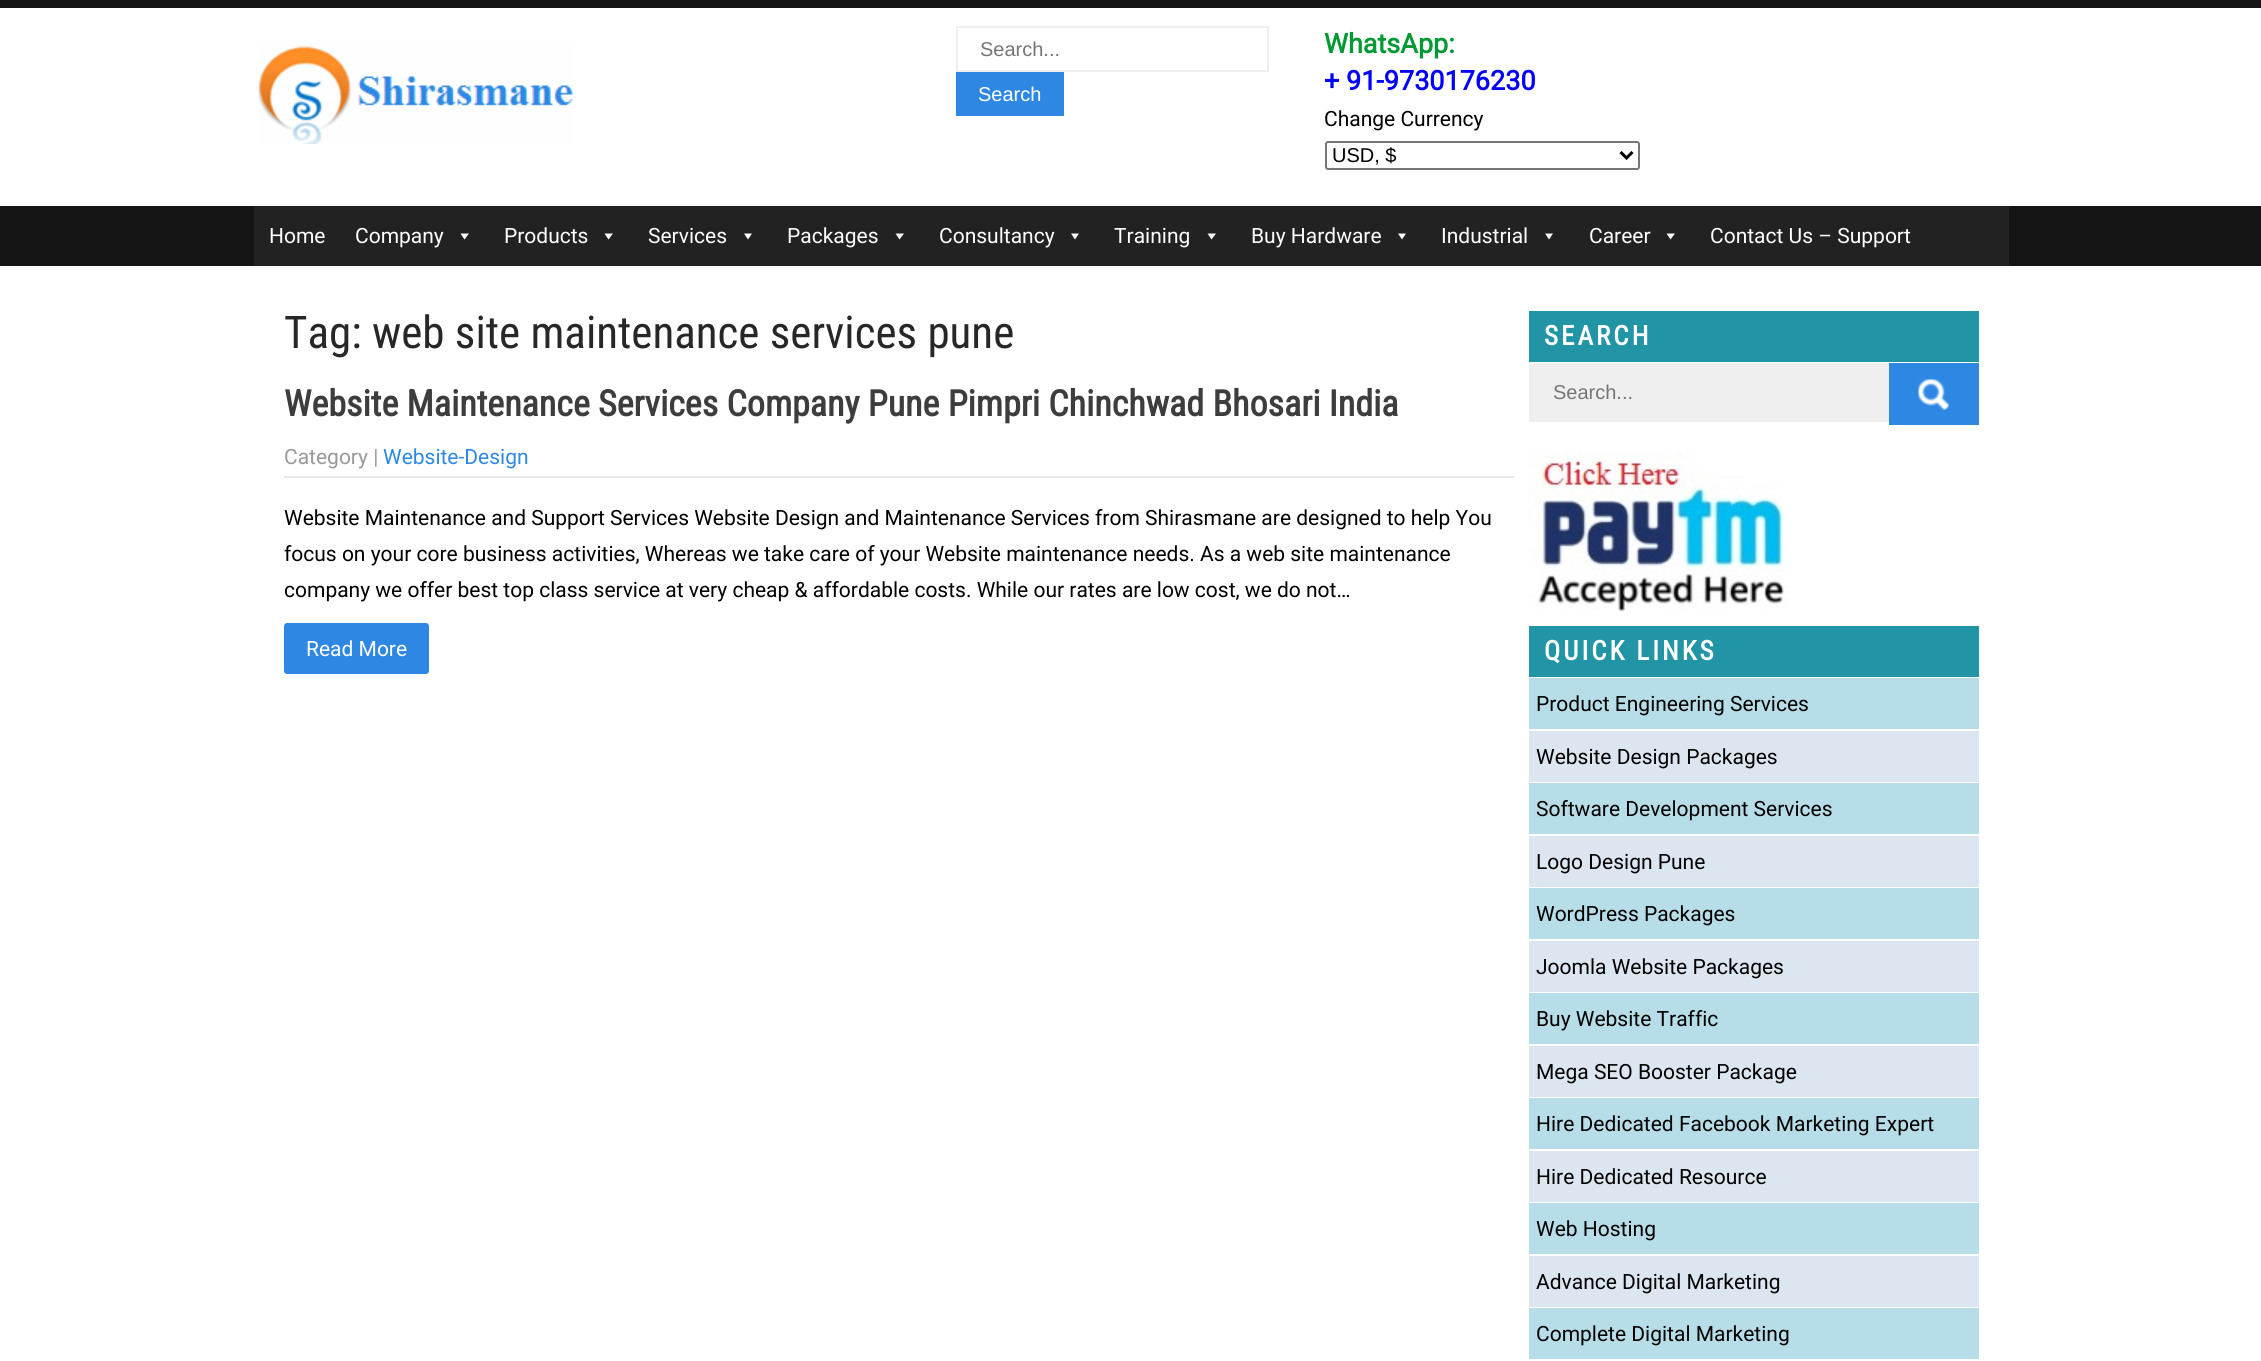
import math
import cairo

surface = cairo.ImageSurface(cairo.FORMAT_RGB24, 2261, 1361)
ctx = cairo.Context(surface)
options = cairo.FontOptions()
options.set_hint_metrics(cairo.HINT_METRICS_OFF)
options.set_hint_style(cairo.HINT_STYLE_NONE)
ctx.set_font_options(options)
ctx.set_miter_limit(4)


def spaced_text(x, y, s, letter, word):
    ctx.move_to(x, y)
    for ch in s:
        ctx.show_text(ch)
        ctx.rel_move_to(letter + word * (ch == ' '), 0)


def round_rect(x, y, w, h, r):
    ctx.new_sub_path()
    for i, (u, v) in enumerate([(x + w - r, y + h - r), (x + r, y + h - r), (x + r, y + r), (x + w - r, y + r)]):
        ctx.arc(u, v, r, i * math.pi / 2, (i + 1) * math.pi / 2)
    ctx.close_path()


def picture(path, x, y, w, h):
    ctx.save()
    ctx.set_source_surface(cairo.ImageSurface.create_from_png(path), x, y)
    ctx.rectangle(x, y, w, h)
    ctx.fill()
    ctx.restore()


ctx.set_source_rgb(1, 1, 1)
ctx.paint()
ctx.set_source_rgb(0.082, 0.082, 0.082)
ctx.rectangle(0, 0, 2261, 8)
ctx.fill()
picture("img1.png", 258, 46, 316, 98)
ctx.rectangle(957, 27, 311, 44)
ctx.set_source_rgb(0.933, 0.933, 0.933)
ctx.stroke()
ctx.select_font_face("Liberation Sans")
ctx.set_font_size(20)
ctx.set_source_rgb(0.459, 0.459, 0.459)
ctx.move_to(980, 56)
ctx.show_text("Search...")
ctx.set_source_rgb(0.18, 0.533, 0.89)
ctx.rectangle(956, 72, 108, 44)
ctx.fill()
ctx.set_source_rgb(1, 1, 1)
ctx.move_to(978, 101)
ctx.show_text("Search")
ctx.select_font_face("Roboto", cairo.FONT_SLANT_NORMAL, cairo.FONT_WEIGHT_BOLD)
ctx.set_font_size(27)
ctx.set_source_rgb(0, 0.6, 0.2)
ctx.move_to(1324, 53)
ctx.show_text("WhatsApp:")
ctx.set_source_rgb(0, 0, 1)
ctx.move_to(1324, 90)
ctx.show_text("+ 91-9730176230")
ctx.select_font_face("Roboto")
ctx.set_font_size(21)
ctx.set_source_rgb(0, 0, 0)
ctx.move_to(1324, 126)
ctx.show_text("Change Currency")
round_rect(1326, 142, 313, 27, 2)
ctx.set_source_rgb(0.463, 0.463, 0.463)
ctx.stroke()
ctx.new_path()
ctx.move_to(1620.5, 152)
ctx.line_to(1626.5, 158)
ctx.line_to(1632.5, 152)
ctx.set_source_rgb(0, 0, 0)
ctx.set_line_width(3)
ctx.stroke()
ctx.select_font_face("Liberation Sans")
ctx.set_font_size(20)
ctx.move_to(1332, 162)
ctx.show_text("USD, $")
ctx.set_source_rgb(0.082, 0.082, 0.082)
ctx.rectangle(0, 206, 2261, 60)
ctx.fill()
ctx.set_source_rgb(0.133, 0.133, 0.133)
ctx.rectangle(254, 206, 1755, 60)
ctx.fill()
ctx.select_font_face("Roboto")
ctx.set_font_size(21)
ctx.set_source_rgb(1, 1, 1)
ctx.move_to(269, 243)
ctx.show_text("Home")
ctx.move_to(355, 243)
ctx.show_text("Company")
ctx.new_path()
ctx.move_to(469, 233.5)
ctx.line_to(464.5, 239.5)
ctx.line_to(460.5, 233.5)
ctx.close_path()
ctx.fill()
ctx.move_to(504, 243)
ctx.show_text("Products")
ctx.new_path()
ctx.move_to(613, 233.5)
ctx.line_to(608.5, 239.5)
ctx.line_to(604.5, 233.5)
ctx.close_path()
ctx.fill()
ctx.move_to(648, 243)
ctx.show_text("Services")
ctx.new_path()
ctx.move_to(752, 233.5)
ctx.line_to(748, 239.5)
ctx.line_to(744, 233.5)
ctx.close_path()
ctx.fill()
ctx.move_to(787, 243)
ctx.show_text("Packages")
ctx.new_path()
ctx.move_to(904, 233.5)
ctx.line_to(899.5, 239.5)
ctx.line_to(895.5, 233.5)
ctx.close_path()
ctx.fill()
ctx.move_to(939, 243)
ctx.show_text("Consultancy")
ctx.new_path()
ctx.move_to(1079, 233.5)
ctx.line_to(1075, 239.5)
ctx.line_to(1071, 233.5)
ctx.close_path()
ctx.fill()
ctx.move_to(1114, 243)
ctx.show_text("Training")
ctx.new_path()
ctx.move_to(1216, 233.5)
ctx.line_to(1211.5, 239.5)
ctx.line_to(1207.5, 233.5)
ctx.close_path()
ctx.fill()
ctx.move_to(1251, 243)
ctx.show_text("Buy Hardware")
ctx.new_path()
ctx.move_to(1406, 233.5)
ctx.line_to(1402, 239.5)
ctx.line_to(1398, 233.5)
ctx.close_path()
ctx.fill()
ctx.move_to(1441, 243)
ctx.show_text("Industrial")
ctx.new_path()
ctx.move_to(1553, 233.5)
ctx.line_to(1549, 239.5)
ctx.line_to(1545, 233.5)
ctx.close_path()
ctx.fill()
ctx.move_to(1589, 243)
ctx.show_text("Career")
ctx.new_path()
ctx.move_to(1675, 233.5)
ctx.line_to(1670.5, 239.5)
ctx.line_to(1666.5, 233.5)
ctx.close_path()
ctx.fill()
ctx.move_to(1710, 243)
ctx.show_text("Contact Us – Support")
ctx.select_font_face("Roboto Condensed")
ctx.set_font_size(45)
ctx.set_source_rgb(0.153, 0.153, 0.153)
ctx.move_to(284, 348)
ctx.show_text("Tag: web site maintenance services pune")
ctx.select_font_face("Roboto Condensed", cairo.FONT_SLANT_NORMAL, cairo.FONT_WEIGHT_BOLD)
ctx.set_font_size(36)
ctx.set_source_rgb(0.239, 0.239, 0.239)
ctx.move_to(284, 416)
ctx.show_text("Website Maintenance Services Company Pune Pimpri Chinchwad Bhosari India")
ctx.set_source_rgb(0.91, 0.91, 0.91)
ctx.rectangle(284, 476, 1230, 2)
ctx.fill()
ctx.select_font_face("Roboto")
ctx.set_font_size(21)
ctx.set_source_rgb(0.6, 0.6, 0.6)
ctx.move_to(284, 464)
ctx.show_text("Category |")
ctx.set_source_rgb(0.18, 0.533, 0.89)
ctx.move_to(383, 464)
ctx.show_text("Website-Design")
ctx.set_source_rgb(0, 0, 0)
ctx.move_to(284, 525)
ctx.show_text("Website Maintenance and Support Services Website Design and Maintenance Services from Shirasmane are designed to help You")
ctx.move_to(284, 561)
ctx.show_text("focus on your core business activities, Whereas we take care of your Website maintenance needs. As a web site maintenance")
ctx.move_to(284, 597)
ctx.show_text("company we offer best top class service at very cheap & affordable costs. While our rates are low cost, we do not…")
ctx.set_source_rgb(0.18, 0.533, 0.89)
round_rect(284, 623, 145, 51, 3)
ctx.fill()
ctx.set_source_rgb(1, 1, 1)
ctx.move_to(306, 656)
ctx.show_text("Read More")
ctx.set_source_rgb(0.129, 0.584, 0.647)
ctx.rectangle(1529, 311, 450, 51)
ctx.fill()
ctx.select_font_face("Roboto Condensed", cairo.FONT_SLANT_NORMAL, cairo.FONT_WEIGHT_BOLD)
ctx.set_font_size(27)
ctx.set_source_rgb(1, 1, 1)
spaced_text(1544, 345, "SEARCH", 3, 0)
ctx.set_source_rgb(0.941, 0.937, 0.937)
ctx.rectangle(1530, 364, 358, 57)
ctx.fill_preserve()
ctx.set_source_rgb(0.933, 0.933, 0.933)
ctx.set_line_width(2)
ctx.stroke()
ctx.select_font_face("Liberation Sans")
ctx.set_font_size(20)
ctx.set_source_rgb(0.459, 0.459, 0.459)
ctx.move_to(1553, 399)
ctx.show_text("Search...")
ctx.set_source_rgb(0.18, 0.533, 0.89)
ctx.rectangle(1889, 363, 90, 62)
ctx.fill()
picture("img2.png", 1918, 379, 31, 31)
picture("img3.png", 1528, 451, 261, 160)
ctx.set_source_rgb(0.129, 0.584, 0.647)
ctx.rectangle(1529, 626, 450, 51)
ctx.fill()
ctx.select_font_face("Roboto Condensed", cairo.FONT_SLANT_NORMAL, cairo.FONT_WEIGHT_BOLD)
ctx.set_font_size(27)
ctx.set_source_rgb(1, 1, 1)
spaced_text(1544, 660, "QUICK LINKS", 3, 0)
ctx.set_source_rgb(0.718, 0.871, 0.91)
ctx.rectangle(1529, 678, 450, 51)
ctx.fill()
ctx.select_font_face("Roboto")
ctx.set_font_size(21)
ctx.set_source_rgb(0, 0, 0)
ctx.move_to(1536, 711)
ctx.show_text("Product Engineering Services")
ctx.set_source_rgb(0.863, 0.902, 0.945)
ctx.rectangle(1529, 731, 450, 51)
ctx.fill()
ctx.set_source_rgb(0, 0, 0)
ctx.move_to(1536, 764)
ctx.show_text("Website Design Packages")
ctx.set_source_rgb(0.718, 0.871, 0.91)
ctx.rectangle(1529, 783, 450, 51)
ctx.fill()
ctx.set_source_rgb(0, 0, 0)
ctx.move_to(1536, 816)
ctx.show_text("Software Development Services")
ctx.set_source_rgb(0.863, 0.902, 0.945)
ctx.rectangle(1529, 836, 450, 51)
ctx.fill()
ctx.set_source_rgb(0, 0, 0)
ctx.move_to(1536, 869)
ctx.show_text("Logo Design Pune")
ctx.set_source_rgb(0.718, 0.871, 0.91)
ctx.rectangle(1529, 888, 450, 51)
ctx.fill()
ctx.set_source_rgb(0, 0, 0)
ctx.move_to(1536, 921)
ctx.show_text("WordPress Packages")
ctx.set_source_rgb(0.863, 0.902, 0.945)
ctx.rectangle(1529, 941, 450, 51)
ctx.fill()
ctx.set_source_rgb(0, 0, 0)
ctx.move_to(1536, 974)
ctx.show_text("Joomla Website Packages")
ctx.set_source_rgb(0.718, 0.871, 0.91)
ctx.rectangle(1529, 993, 450, 51)
ctx.fill()
ctx.set_source_rgb(0, 0, 0)
ctx.move_to(1536, 1026)
ctx.show_text("Buy Website Traffic")
ctx.set_source_rgb(0.863, 0.902, 0.945)
ctx.rectangle(1529, 1046, 450, 51)
ctx.fill()
ctx.set_source_rgb(0, 0, 0)
ctx.move_to(1536, 1079)
ctx.show_text("Mega SEO Booster Package")
ctx.set_source_rgb(0.718, 0.871, 0.91)
ctx.rectangle(1529, 1098, 450, 51)
ctx.fill()
ctx.set_source_rgb(0, 0, 0)
ctx.move_to(1536, 1131)
ctx.show_text("Hire Dedicated Facebook Marketing Expert")
ctx.set_source_rgb(0.863, 0.902, 0.945)
ctx.rectangle(1529, 1151, 450, 51)
ctx.fill()
ctx.set_source_rgb(0, 0, 0)
ctx.move_to(1536, 1184)
ctx.show_text("Hire Dedicated Resource")
ctx.set_source_rgb(0.718, 0.871, 0.91)
ctx.rectangle(1529, 1203, 450, 51)
ctx.fill()
ctx.set_source_rgb(0, 0, 0)
ctx.move_to(1536, 1236)
ctx.show_text("Web Hosting")
ctx.set_source_rgb(0.863, 0.902, 0.945)
ctx.rectangle(1529, 1256, 450, 51)
ctx.fill()
ctx.set_source_rgb(0, 0, 0)
ctx.move_to(1536, 1289)
ctx.show_text("Advance Digital Marketing")
ctx.set_source_rgb(0.718, 0.871, 0.91)
ctx.rectangle(1529, 1308, 450, 51)
ctx.fill()
ctx.set_source_rgb(0, 0, 0)
ctx.move_to(1536, 1341)
ctx.show_text("Complete Digital Marketing")
surface.write_to_png("page.png")
